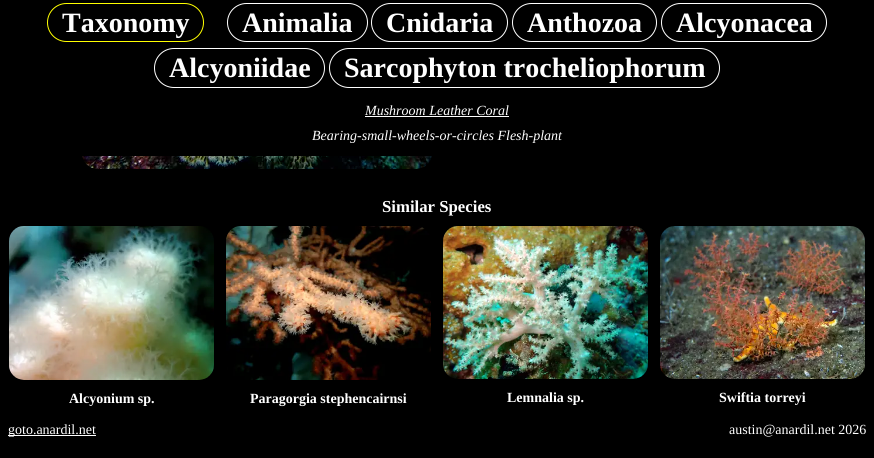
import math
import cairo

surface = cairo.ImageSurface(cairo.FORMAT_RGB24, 874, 458)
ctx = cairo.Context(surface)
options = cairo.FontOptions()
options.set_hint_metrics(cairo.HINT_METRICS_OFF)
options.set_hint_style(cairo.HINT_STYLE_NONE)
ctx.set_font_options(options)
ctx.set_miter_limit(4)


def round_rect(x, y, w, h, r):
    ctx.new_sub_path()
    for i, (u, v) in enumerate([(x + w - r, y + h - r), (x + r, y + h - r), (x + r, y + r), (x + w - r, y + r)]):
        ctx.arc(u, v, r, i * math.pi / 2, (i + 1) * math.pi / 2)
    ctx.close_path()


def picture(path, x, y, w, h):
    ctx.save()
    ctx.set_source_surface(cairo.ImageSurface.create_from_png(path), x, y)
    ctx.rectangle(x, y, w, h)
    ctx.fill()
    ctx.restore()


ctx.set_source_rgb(0, 0, 0)
ctx.paint()
round_rect(47.5, 3.5, 156, 38, 19)
ctx.set_source_rgb(1, 1, 0)
ctx.set_line_width(1)
ctx.stroke()
ctx.select_font_face("Liberation Serif", cairo.FONT_SLANT_NORMAL, cairo.FONT_WEIGHT_BOLD)
ctx.set_font_size(28)
ctx.set_source_rgb(1, 1, 1)
ctx.move_to(62, 32)
ctx.show_text("Taxonomy")
round_rect(227.5, 3.5, 140, 38, 19)
ctx.stroke()
ctx.move_to(242, 32)
ctx.show_text("Animalia")
round_rect(371.5, 3.5, 136, 38, 19)
ctx.stroke()
ctx.move_to(386, 32)
ctx.show_text("Cnidaria")
round_rect(512.5, 3.5, 144, 38, 19)
ctx.stroke()
ctx.move_to(527, 32)
ctx.show_text("Anthozoa")
round_rect(661.5, 3.5, 165, 38, 19)
ctx.stroke()
ctx.move_to(676, 32)
ctx.show_text("Alcyonacea")
round_rect(154.5, 48.5, 170, 39, 19.5)
ctx.stroke()
ctx.move_to(169, 77)
ctx.show_text("Alcyoniidae")
round_rect(329.5, 48.5, 390, 39, 19.5)
ctx.stroke()
ctx.move_to(344, 77)
ctx.show_text("Sarcophyton trocheliophorum")
ctx.select_font_face("Liberation Serif", cairo.FONT_SLANT_ITALIC)
ctx.set_font_size(14)
ctx.move_to(365, 115)
ctx.show_text("Mushroom Leather Coral")
ctx.rectangle(365, 116, 144, 1)
ctx.fill()
ctx.move_to(312, 140)
ctx.show_text("Bearing-small-wheels-or-circles Flesh-plant")
picture("img1.png", 82, 156, 350, 13)
ctx.select_font_face("Liberation Serif", cairo.FONT_SLANT_NORMAL, cairo.FONT_WEIGHT_BOLD)
ctx.set_font_size(16.75)
ctx.move_to(382, 212)
ctx.show_text("Similar Species")
picture("img2.png", 9, 226, 205, 154)
ctx.set_font_size(14)
ctx.move_to(69, 403)
ctx.show_text("Alcyonium sp.")
picture("img3.png", 226, 226, 205, 154)
ctx.move_to(250, 403)
ctx.show_text("Paragorgia stephencairnsi")
picture("img4.png", 443, 226, 205, 153)
ctx.move_to(507, 402)
ctx.show_text("Lemnalia sp.")
picture("img5.png", 660, 226, 205, 153)
ctx.move_to(719, 402)
ctx.show_text("Swiftia torreyi")
ctx.rectangle(8, 435, 88, 1)
ctx.fill()
ctx.select_font_face("Liberation Serif")
ctx.move_to(8, 434)
ctx.show_text("goto.anardil.net")
ctx.move_to(729, 434)
ctx.show_text("austin@anardil.net 2026")
surface.write_to_png("page.png")
